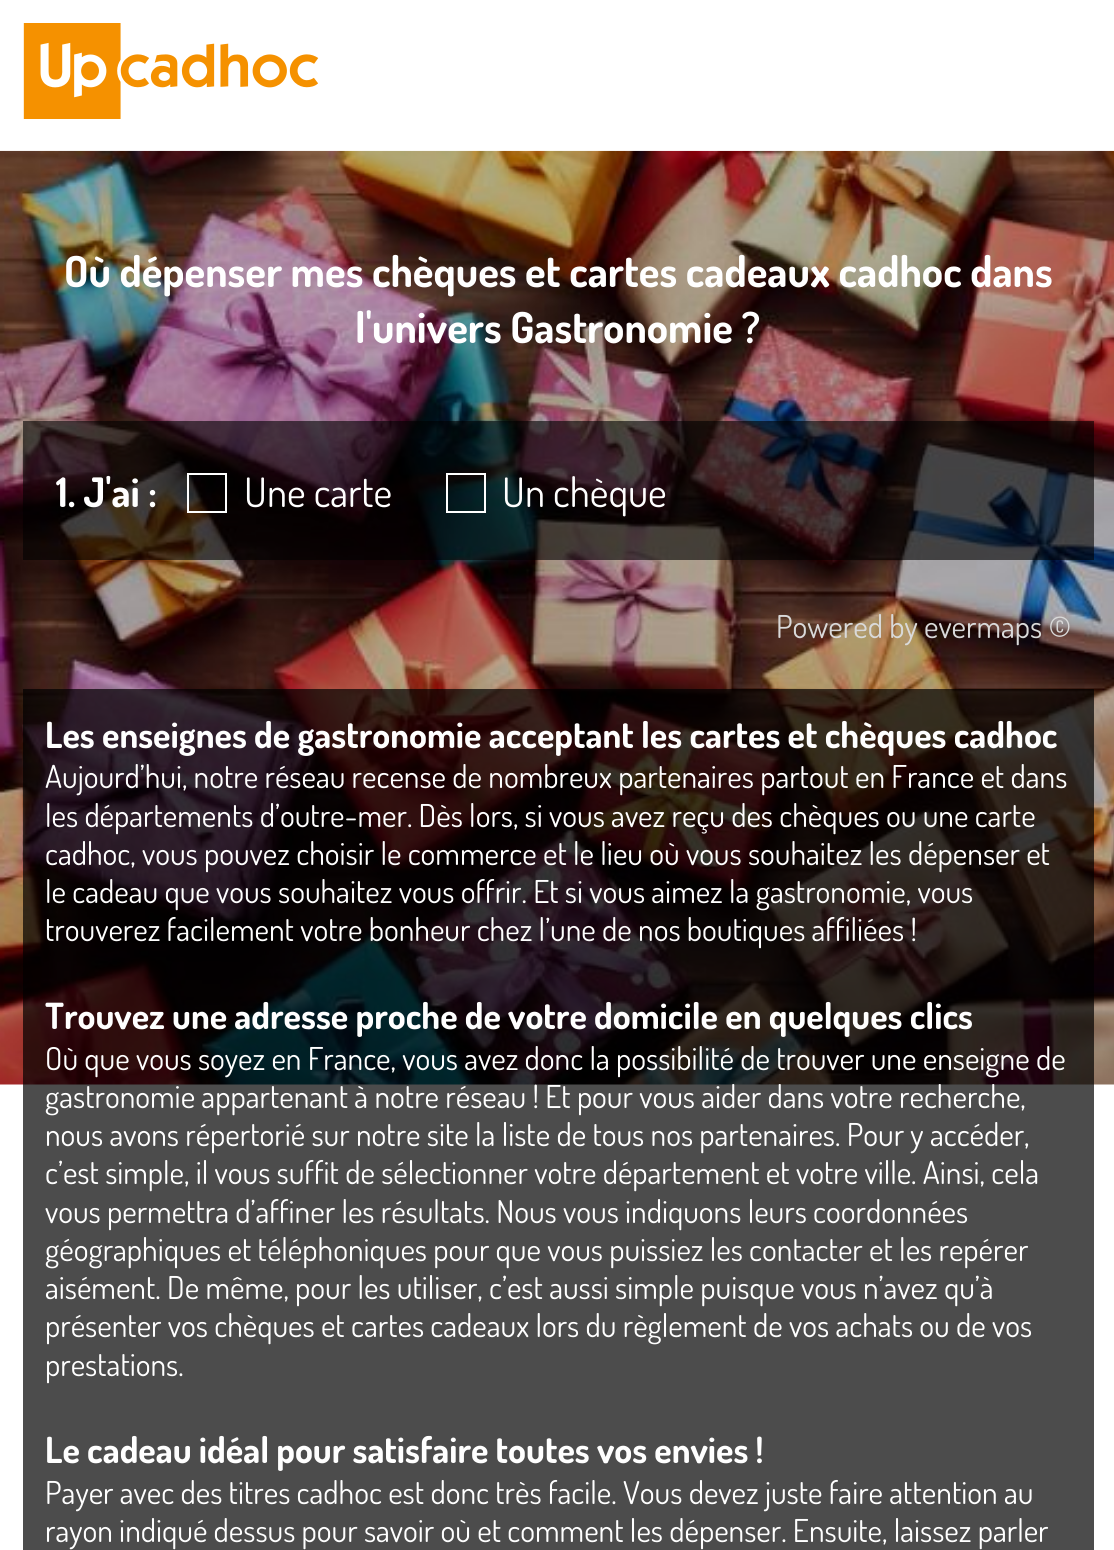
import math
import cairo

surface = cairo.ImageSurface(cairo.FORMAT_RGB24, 1114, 1550)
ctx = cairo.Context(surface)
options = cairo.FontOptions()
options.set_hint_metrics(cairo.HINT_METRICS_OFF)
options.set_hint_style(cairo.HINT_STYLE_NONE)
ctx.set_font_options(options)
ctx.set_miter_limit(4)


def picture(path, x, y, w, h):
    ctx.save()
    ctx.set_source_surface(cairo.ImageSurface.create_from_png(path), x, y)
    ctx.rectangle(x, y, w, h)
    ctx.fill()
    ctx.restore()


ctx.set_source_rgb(1, 1, 1)
ctx.paint()
picture("img1.png", 23, 23, 296, 96)
picture("img2.png", 0, 150, 1114, 935)
ctx.select_font_face("Dosis", cairo.FONT_SLANT_NORMAL, cairo.FONT_WEIGHT_BOLD)
ctx.set_font_size(42.75)
ctx.set_source_rgb(1, 1, 1)
ctx.move_to(64, 287)
ctx.show_text("Où dépenser mes chèques et cartes cadeaux cadhoc dans")
ctx.move_to(355, 343)
ctx.show_text("l'univers Gastronomie ?")
ctx.set_source_rgba(0, 0, 0, 0.6)
ctx.rectangle(23, 421, 1071, 139)
ctx.fill()
ctx.set_font_size(40.5)
ctx.set_source_rgb(1, 1, 1)
ctx.move_to(56, 507)
ctx.show_text("1. J'ai :")
ctx.rectangle(188, 474, 38, 38)
ctx.stroke()
ctx.select_font_face("Dosis")
ctx.move_to(244, 507)
ctx.show_text("Une carte")
ctx.rectangle(447, 474, 38, 38)
ctx.stroke()
ctx.move_to(502, 507)
ctx.show_text("Un chèque")
ctx.set_font_size(31.5)
ctx.set_source_rgb(0.851, 0.851, 0.851)
ctx.move_to(776, 638)
ctx.show_text("Powered by evermaps ©")
ctx.set_source_rgba(0, 0, 0, 0.7)
ctx.rectangle(23, 689, 1071, 861)
ctx.fill()
ctx.select_font_face("Dosis", cairo.FONT_SLANT_NORMAL, cairo.FONT_WEIGHT_BOLD)
ctx.set_font_size(36)
ctx.set_source_rgb(1, 1, 1)
ctx.move_to(45, 748)
ctx.show_text("Les enseignes de gastronomie acceptant les cartes et chèques cadhoc")
ctx.select_font_face("Dosis")
ctx.set_font_size(31.5)
ctx.move_to(45, 788)
ctx.show_text("Aujourd’hui, notre réseau recense de nombreux partenaires partout en France et dans")
ctx.move_to(45, 827)
ctx.show_text("les départements d’outre-mer. Dès lors, si vous avez reçu des chèques ou une carte")
ctx.move_to(45, 865)
ctx.show_text("cadhoc, vous pouvez choisir le commerce et le lieu où vous souhaitez les dépenser et")
ctx.move_to(45, 903)
ctx.show_text("le cadeau que vous souhaitez vous offrir. Et si vous aimez la gastronomie, vous")
ctx.move_to(45, 941)
ctx.show_text("trouverez facilement votre bonheur chez l’une de nos boutiques affiliées !")
ctx.select_font_face("Dosis", cairo.FONT_SLANT_NORMAL, cairo.FONT_WEIGHT_BOLD)
ctx.set_font_size(36)
ctx.move_to(45, 1029)
ctx.show_text("Trouvez une adresse proche de votre domicile en quelques clics")
ctx.select_font_face("Dosis")
ctx.set_font_size(31.5)
ctx.move_to(45, 1070)
ctx.show_text("Où que vous soyez en France, vous avez donc la possibilité de trouver une enseigne de")
ctx.move_to(45, 1108)
ctx.show_text("gastronomie appartenant à notre réseau ! Et pour vous aider dans votre recherche,")
ctx.move_to(45, 1146)
ctx.show_text("nous avons répertorié sur notre site la liste de tous nos partenaires. Pour y accéder,")
ctx.move_to(45, 1184)
ctx.show_text("c’est simple, il vous suffit de sélectionner votre département et votre ville. Ainsi, cela")
ctx.move_to(45, 1223)
ctx.show_text("vous permettra d’affiner les résultats. Nous vous indiquons leurs coordonnées")
ctx.move_to(45, 1261)
ctx.show_text("géographiques et téléphoniques pour que vous puissiez les contacter et les repérer")
ctx.move_to(45, 1299)
ctx.show_text("aisément. De même, pour les utiliser, c’est aussi simple puisque vous n’avez qu’à")
ctx.move_to(45, 1337)
ctx.show_text("présenter vos chèques et cartes cadeaux lors du règlement de vos achats ou de vos")
ctx.move_to(45, 1376)
ctx.show_text("prestations.")
ctx.select_font_face("Dosis", cairo.FONT_SLANT_NORMAL, cairo.FONT_WEIGHT_BOLD)
ctx.set_font_size(36)
ctx.move_to(45, 1463)
ctx.show_text("Le cadeau idéal pour satisfaire toutes vos envies !")
ctx.select_font_face("Dosis")
ctx.set_font_size(31.5)
ctx.move_to(45, 1504)
ctx.show_text("Payer avec des titres cadhoc est donc très facile. Vous devez juste faire attention au")
ctx.move_to(45, 1542)
ctx.show_text("rayon indiqué dessus pour savoir où et comment les dépenser. Ensuite, laissez parler")
surface.write_to_png("page.png")
